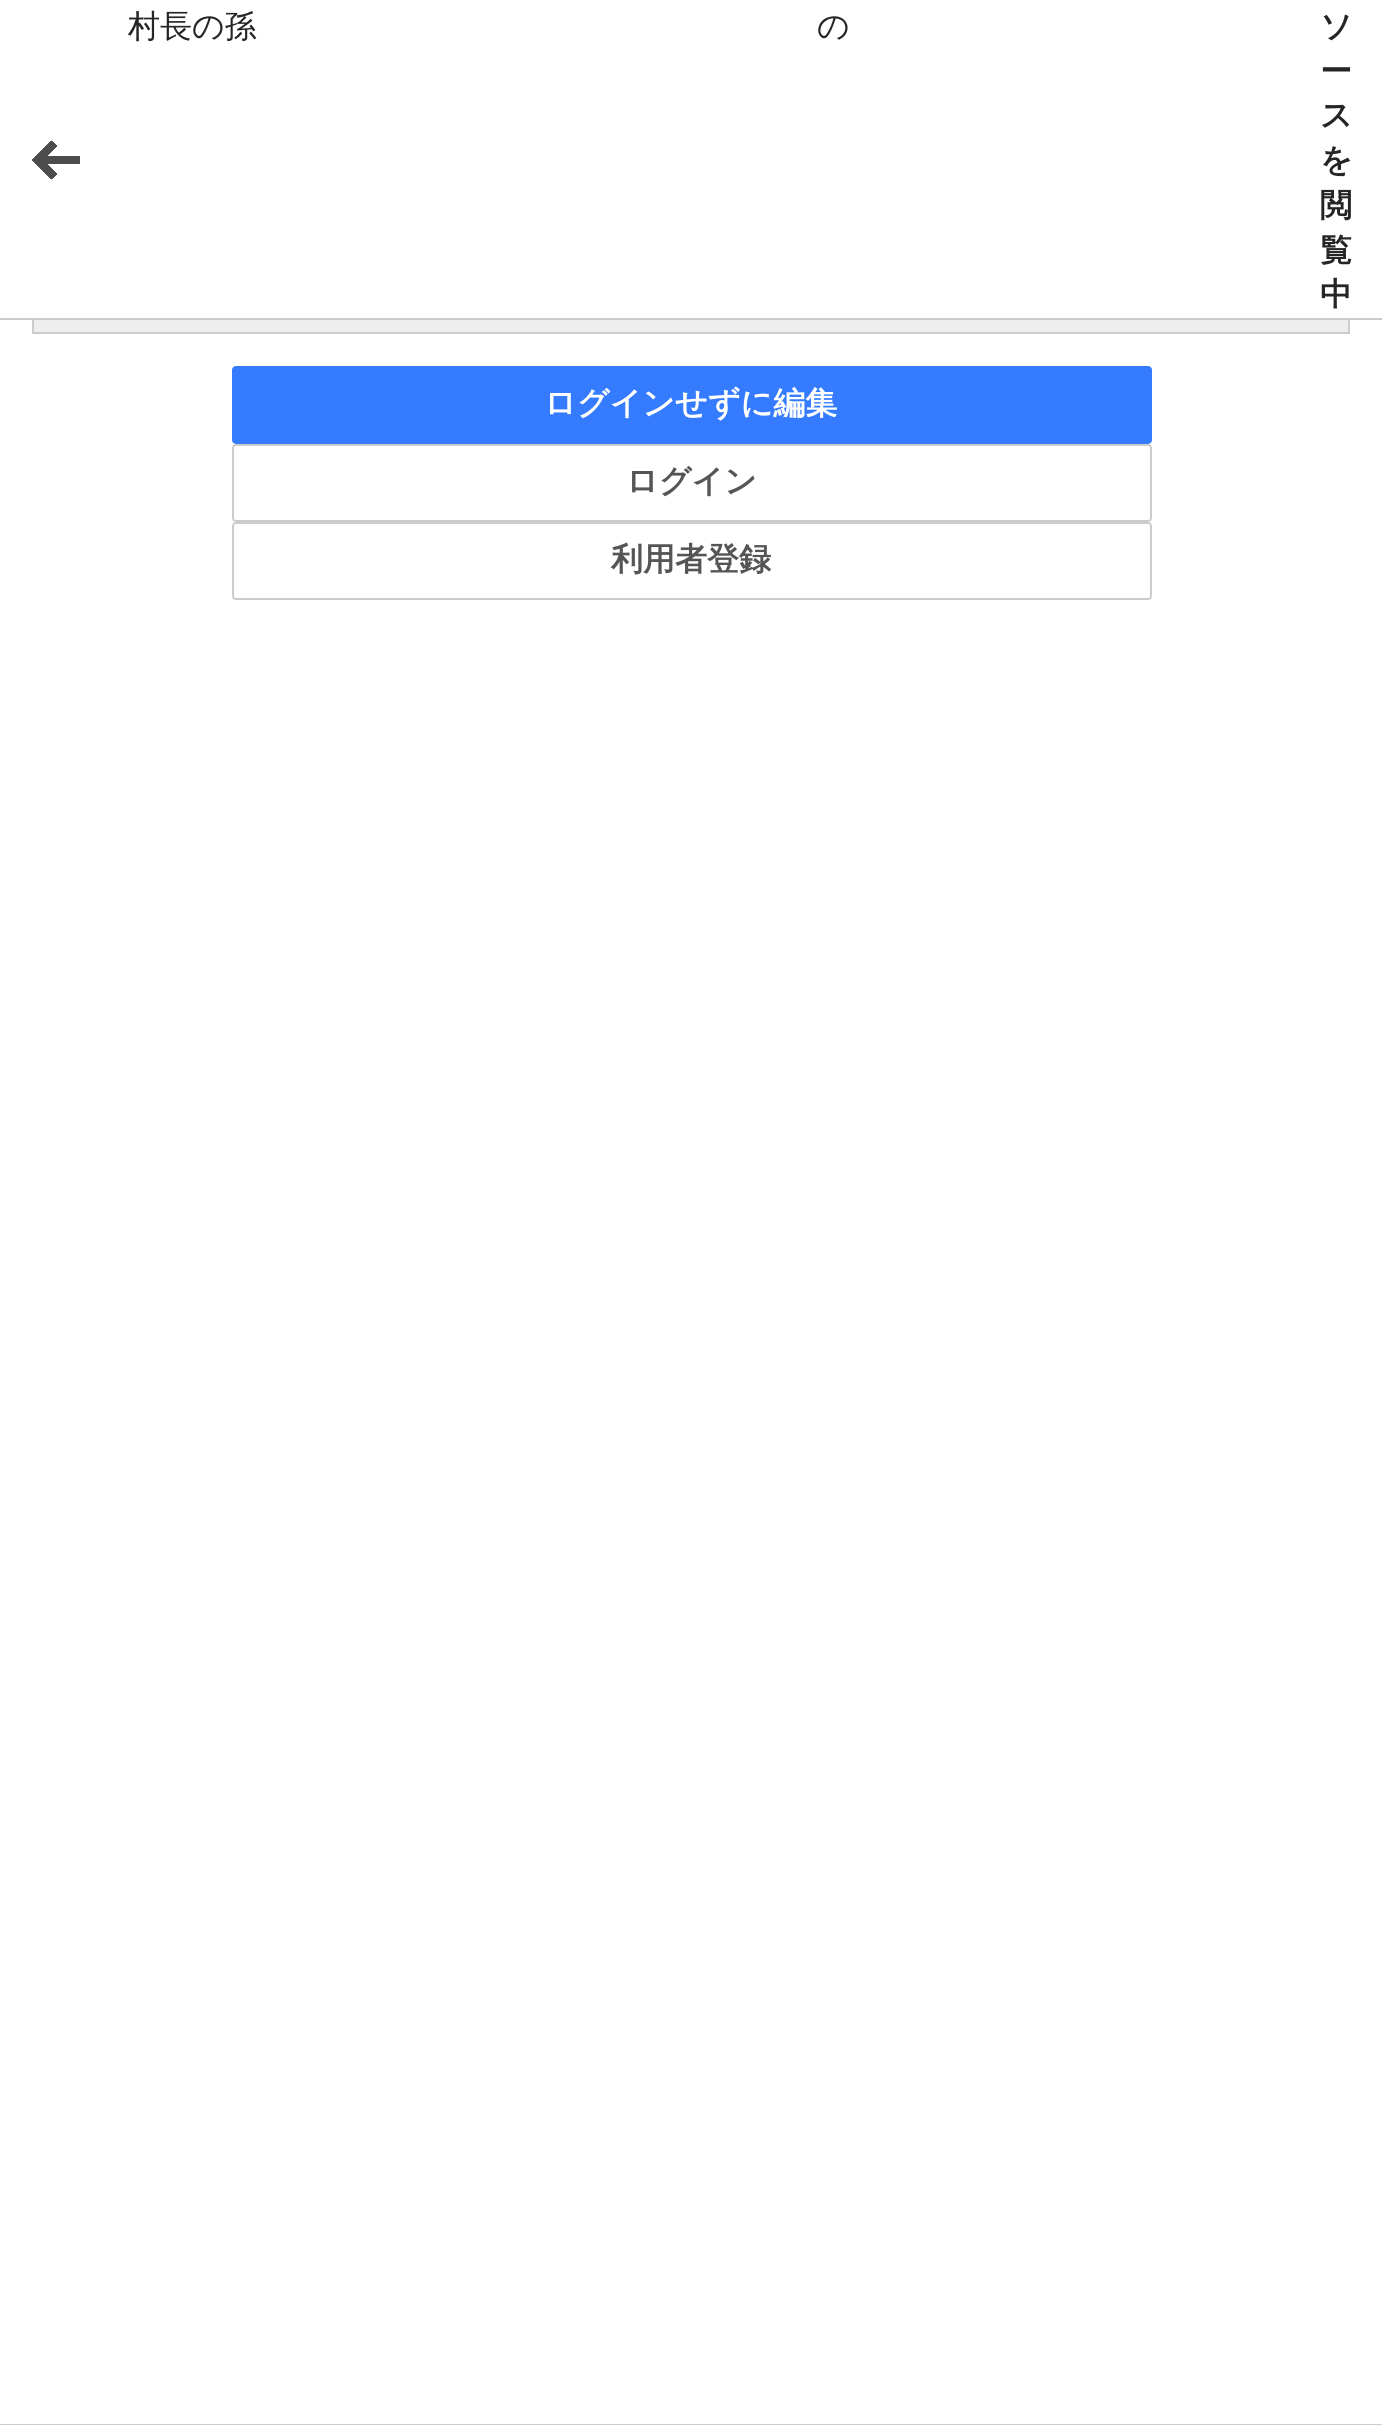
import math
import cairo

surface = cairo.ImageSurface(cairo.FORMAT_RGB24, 1382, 2425)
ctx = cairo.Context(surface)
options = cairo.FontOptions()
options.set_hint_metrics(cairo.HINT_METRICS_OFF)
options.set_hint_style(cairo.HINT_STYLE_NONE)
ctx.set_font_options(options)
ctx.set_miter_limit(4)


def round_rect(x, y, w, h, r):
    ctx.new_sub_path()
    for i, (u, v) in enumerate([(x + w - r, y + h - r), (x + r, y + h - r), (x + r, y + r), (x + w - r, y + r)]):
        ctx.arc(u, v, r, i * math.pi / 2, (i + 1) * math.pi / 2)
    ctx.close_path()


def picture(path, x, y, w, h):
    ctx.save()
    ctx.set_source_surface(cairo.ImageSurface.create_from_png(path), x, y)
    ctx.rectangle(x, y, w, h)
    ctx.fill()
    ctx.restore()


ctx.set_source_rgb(1, 1, 1)
ctx.paint()
ctx.set_source_rgb(0.933, 0.933, 0.933)
ctx.rectangle(34, 320, 1314, 12)
ctx.fill()
ctx.rectangle(33, 109, 1316, 224)
ctx.set_source_rgb(0.8, 0.8, 0.8)
ctx.stroke()
ctx.set_source_rgb(1, 1, 1)
ctx.rectangle(32, 108, 1318, 210)
ctx.fill()
ctx.set_source_rgb(0.8, 0.8, 0.8)
ctx.rectangle(0, 318, 1382, 2)
ctx.fill()
picture("img1.png", 32, 141, 48, 38)
ctx.select_font_face("WenQuanYi Zen Hei Medium")
ctx.set_font_size(32)
ctx.set_source_rgb(0.145, 0.145, 0.145)
ctx.move_to(128, 37)
ctx.show_text("村長の孫")
ctx.move_to(817, 37)
ctx.show_text("の")
ctx.select_font_face("WenQuanYi Zen Hei", cairo.FONT_SLANT_NORMAL, cairo.FONT_WEIGHT_BOLD)
ctx.move_to(1320, 37)
ctx.show_text("ソ")
ctx.move_to(1320, 82)
ctx.show_text("ー")
ctx.move_to(1320, 126)
ctx.show_text("ス")
ctx.move_to(1320, 171)
ctx.show_text("を")
ctx.move_to(1320, 216)
ctx.show_text("閲")
ctx.move_to(1320, 261)
ctx.show_text("覧")
ctx.move_to(1320, 305)
ctx.show_text("中")
ctx.set_source_rgb(0.204, 0.482, 1)
round_rect(233, 367, 918, 76, 3)
ctx.fill_preserve()
ctx.stroke()
ctx.set_source_rgb(1, 1, 1)
ctx.move_to(544, 414)
ctx.show_text("ログインせずに編集")
round_rect(233, 445, 918, 76, 3)
ctx.set_source_rgb(0.8, 0.8, 0.8)
ctx.stroke()
ctx.set_source_rgb(0.333, 0.333, 0.333)
ctx.move_to(626, 492)
ctx.show_text("ログイン")
round_rect(233, 523, 918, 76, 3)
ctx.set_source_rgb(0.8, 0.8, 0.8)
ctx.stroke()
ctx.set_source_rgb(0.333, 0.333, 0.333)
ctx.move_to(611, 570)
ctx.show_text("利用者登録")
ctx.set_source_rgb(0.8, 0.8, 0.8)
ctx.rectangle(0, 2424, 1382, 1)
ctx.fill()
surface.write_to_png("page.png")
